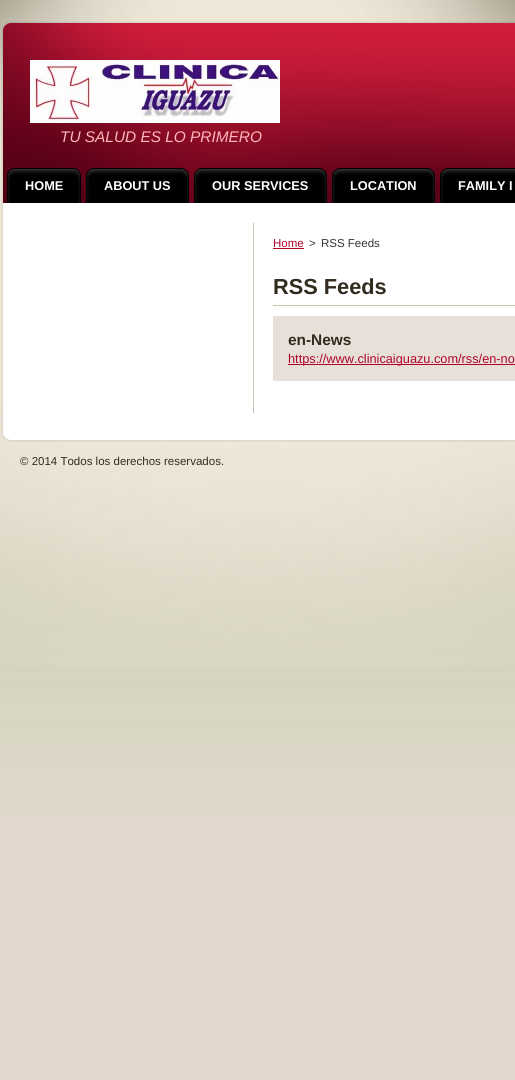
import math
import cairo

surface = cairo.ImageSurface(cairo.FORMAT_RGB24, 515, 1080)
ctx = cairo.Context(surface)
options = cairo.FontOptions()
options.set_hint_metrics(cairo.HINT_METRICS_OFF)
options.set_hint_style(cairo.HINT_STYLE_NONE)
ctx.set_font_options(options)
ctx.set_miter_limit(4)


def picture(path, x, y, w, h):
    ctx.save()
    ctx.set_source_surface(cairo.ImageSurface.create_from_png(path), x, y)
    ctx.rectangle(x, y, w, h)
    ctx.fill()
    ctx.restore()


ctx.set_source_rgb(0.882, 0.843, 0.804)
ctx.paint()
picture("img1.png", 0, 667, 515, 149)
picture("img2.png", 0, 0, 515, 667)
picture("img3.png", 1, 21, 514, 182)
picture("img4.png", 30, 60, 250, 63)
ctx.select_font_face("Liberation Sans", cairo.FONT_SLANT_ITALIC)
ctx.set_font_size(15.4)
ctx.set_source_rgb(1, 0.718, 0.718)
ctx.move_to(60, 142)
ctx.show_text("TU SALUD ES LO PRIMERO")
picture("img5.png", 7, 168, 8, 35)
picture("img6.png", 15, 168, 66, 35)
ctx.select_font_face("Liberation Sans", cairo.FONT_SLANT_NORMAL, cairo.FONT_WEIGHT_BOLD)
ctx.set_font_size(12.75)
ctx.set_source_rgb(1, 1, 1)
ctx.move_to(25, 190)
ctx.show_text("HOME")
picture("img7.png", 86, 168, 8, 35)
picture("img8.png", 94, 168, 95, 35)
ctx.move_to(104, 190)
ctx.show_text("ABOUT US")
picture("img9.png", 194, 168, 8, 35)
picture("img10.png", 202, 168, 125, 35)
ctx.move_to(212, 190)
ctx.show_text("OUR SERVICES")
picture("img11.png", 332, 168, 8, 35)
picture("img12.png", 340, 168, 95, 35)
ctx.move_to(350, 190)
ctx.show_text("LOCATION")
picture("img13.png", 440, 168, 8, 35)
picture("img14.png", 448, 168, 67, 35)
ctx.move_to(458, 190)
ctx.show_text("FAMILY I")
picture("img15.png", 1, 433, 514, 9)
picture("img16.png", 1, 203, 514, 230)
ctx.set_source_rgb(0.788, 0.78, 0.702)
ctx.rectangle(253, 223, 1, 190)
ctx.fill()
ctx.select_font_face("Liberation Sans")
ctx.set_font_size(11.5)
ctx.set_source_rgb(0.694, 0.016, 0.157)
ctx.move_to(273, 247)
ctx.show_text("Home")
ctx.rectangle(273, 248, 31, 1)
ctx.fill()
ctx.set_source_rgb(0.212, 0.212, 0.212)
ctx.move_to(309, 247)
ctx.show_text(">")
ctx.move_to(321, 247)
ctx.show_text("RSS Feeds")
ctx.set_source_rgb(0.788, 0.78, 0.702)
ctx.rectangle(273, 305, 242, 1)
ctx.fill()
ctx.select_font_face("Liberation Sans", cairo.FONT_SLANT_NORMAL, cairo.FONT_WEIGHT_BOLD)
ctx.set_font_size(21.75)
ctx.set_source_rgb(0.192, 0.173, 0.114)
ctx.move_to(273, 294)
ctx.show_text("RSS Feeds")
ctx.set_source_rgb(0.902, 0.878, 0.847)
ctx.rectangle(273, 316, 242, 65)
ctx.fill()
ctx.set_font_size(15.4)
ctx.set_source_rgb(0.192, 0.173, 0.114)
ctx.move_to(288, 345)
ctx.show_text("en-News")
ctx.set_source_rgb(0.694, 0.016, 0.157)
ctx.rectangle(288, 364, 227, 1)
ctx.fill()
ctx.select_font_face("Liberation Sans")
ctx.set_font_size(12.75)
ctx.move_to(288, 363)
ctx.show_text("https://www.clinicaiguazu.com/rss/en-no")
ctx.set_font_size(11.5)
ctx.set_source_rgb(0.192, 0.173, 0.114)
ctx.move_to(20, 465)
ctx.show_text("© 2014 Todos los derechos reservados.")
surface.write_to_png("page.png")
